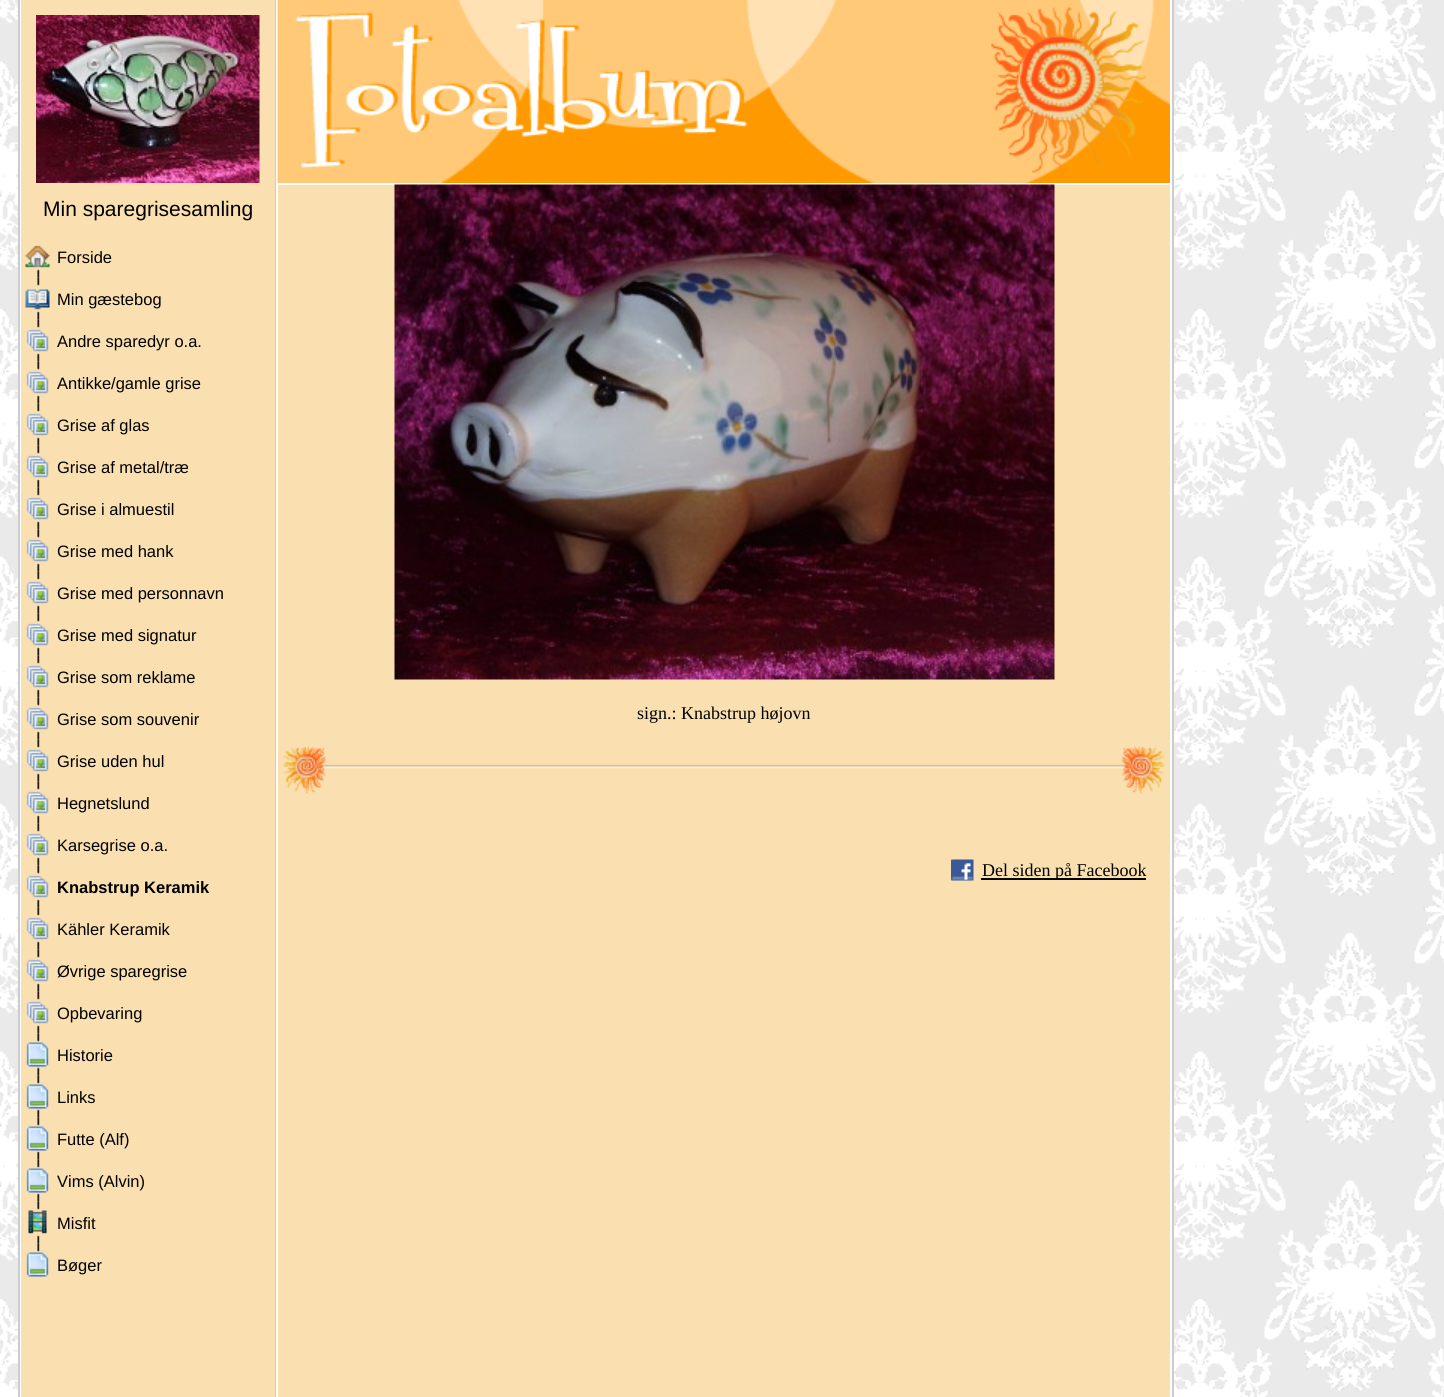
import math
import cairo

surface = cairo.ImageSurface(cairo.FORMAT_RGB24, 1444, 1397)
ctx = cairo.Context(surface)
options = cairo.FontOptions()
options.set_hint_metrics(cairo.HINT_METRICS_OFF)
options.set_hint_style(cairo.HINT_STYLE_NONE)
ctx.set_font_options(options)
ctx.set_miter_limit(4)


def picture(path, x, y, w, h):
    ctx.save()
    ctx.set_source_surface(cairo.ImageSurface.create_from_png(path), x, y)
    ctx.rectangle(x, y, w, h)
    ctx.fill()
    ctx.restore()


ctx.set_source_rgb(1, 1, 1)
ctx.paint()
picture("img1.png", 0, 0, 1444, 1397)
ctx.set_source_rgb(1, 1, 1)
ctx.rectangle(20, 0, 1152, 1397)
ctx.fill()
ctx.set_source_rgb(0.8, 0.8, 0.8)
ctx.rectangle(18, 0, 2, 1397)
ctx.fill()
ctx.set_source_rgb(0.98, 0.878, 0.69)
ctx.rectangle(21, 0, 254, 1397)
ctx.fill()
picture("img2.png", 36, 15, 224, 168)
ctx.select_font_face("Liberation Sans")
ctx.set_font_size(21)
ctx.set_source_rgb(0, 0, 0)
ctx.move_to(43, 216)
ctx.show_text("Min sparegrisesamling")
picture("img3.png", 37, 269, 3, 9)
picture("img4.png", 25, 245, 25, 23)
ctx.set_font_size(16.5)
ctx.move_to(57, 263)
ctx.show_text("Forside")
picture("img5.png", 37, 277, 3, 43)
picture("img6.png", 25, 289, 25, 21)
ctx.move_to(57, 305)
ctx.show_text("Min gæstebog")
picture("img5.png", 37, 319, 3, 43)
picture("img7.png", 26, 329, 23, 23)
ctx.move_to(57, 347)
ctx.show_text("Andre sparedyr o.a.")
picture("img5.png", 37, 361, 3, 43)
picture("img7.png", 26, 371, 23, 23)
ctx.move_to(57, 389)
ctx.show_text("Antikke/gamle grise")
picture("img5.png", 37, 403, 3, 43)
picture("img7.png", 26, 413, 23, 23)
ctx.move_to(57, 431)
ctx.show_text("Grise af glas")
picture("img5.png", 37, 445, 3, 43)
picture("img7.png", 26, 455, 23, 23)
ctx.move_to(57, 473)
ctx.show_text("Grise af metal/træ")
picture("img5.png", 37, 487, 3, 43)
picture("img7.png", 26, 497, 23, 23)
ctx.move_to(57, 515)
ctx.show_text("Grise i almuestil")
picture("img5.png", 37, 529, 3, 43)
picture("img7.png", 26, 539, 23, 23)
ctx.move_to(57, 557)
ctx.show_text("Grise med hank")
picture("img5.png", 37, 571, 3, 43)
picture("img7.png", 26, 581, 23, 23)
ctx.move_to(57, 599)
ctx.show_text("Grise med personnavn")
picture("img5.png", 37, 613, 3, 43)
picture("img7.png", 26, 623, 23, 23)
ctx.move_to(57, 641)
ctx.show_text("Grise med signatur")
picture("img5.png", 37, 655, 3, 43)
picture("img7.png", 26, 665, 23, 23)
ctx.move_to(57, 683)
ctx.show_text("Grise som reklame")
picture("img5.png", 37, 697, 3, 43)
picture("img7.png", 26, 707, 23, 23)
ctx.move_to(57, 725)
ctx.show_text("Grise som souvenir")
picture("img5.png", 37, 739, 3, 43)
picture("img7.png", 26, 749, 23, 23)
ctx.move_to(57, 767)
ctx.show_text("Grise uden hul")
picture("img5.png", 37, 781, 3, 43)
picture("img7.png", 26, 791, 23, 23)
ctx.move_to(57, 809)
ctx.show_text("Hegnetslund")
picture("img5.png", 37, 823, 3, 43)
picture("img7.png", 26, 833, 23, 23)
ctx.move_to(57, 851)
ctx.show_text("Karsegrise o.a.")
picture("img5.png", 37, 865, 3, 43)
picture("img7.png", 26, 875, 23, 23)
ctx.select_font_face("Liberation Sans", cairo.FONT_SLANT_NORMAL, cairo.FONT_WEIGHT_BOLD)
ctx.move_to(57, 893)
ctx.show_text("Knabstrup Keramik")
picture("img5.png", 37, 907, 3, 43)
picture("img7.png", 26, 917, 23, 23)
ctx.select_font_face("Liberation Sans")
ctx.move_to(57, 935)
ctx.show_text("Kähler Keramik")
picture("img5.png", 37, 949, 3, 43)
picture("img7.png", 26, 959, 23, 23)
ctx.move_to(57, 977)
ctx.show_text("Øvrige sparegrise")
picture("img5.png", 37, 991, 3, 43)
picture("img7.png", 26, 1001, 23, 23)
ctx.move_to(57, 1019)
ctx.show_text("Opbevaring")
picture("img5.png", 37, 1033, 3, 43)
picture("img8.png", 26, 1042, 23, 25)
ctx.move_to(57, 1061)
ctx.show_text("Historie")
picture("img5.png", 37, 1075, 3, 43)
picture("img8.png", 26, 1084, 23, 25)
ctx.move_to(57, 1103)
ctx.show_text("Links")
picture("img5.png", 37, 1117, 3, 43)
picture("img8.png", 26, 1126, 23, 25)
ctx.move_to(57, 1145)
ctx.show_text("Futte (Alf)")
picture("img5.png", 37, 1159, 3, 43)
picture("img8.png", 26, 1168, 23, 25)
ctx.move_to(57, 1187)
ctx.show_text("Vims (Alvin)")
picture("img5.png", 37, 1201, 3, 43)
picture("img9.png", 28, 1210, 19, 24)
ctx.move_to(57, 1229)
ctx.show_text("Misfit")
picture("img10.png", 37, 1243, 3, 9)
picture("img8.png", 26, 1252, 23, 25)
ctx.move_to(57, 1271)
ctx.show_text("Bøger")
ctx.set_source_rgb(0.8, 0.8, 0.8)
ctx.rectangle(275, 0, 1, 1397)
ctx.fill()
ctx.set_source_rgb(0.98, 0.878, 0.69)
ctx.rectangle(278, 185, 892, 1212)
ctx.fill()
picture("img11.png", 277, 0, 893, 183)
picture("img12.png", 394, 184, 661, 496)
ctx.select_font_face("Liberation Serif")
ctx.set_font_size(18)
ctx.set_source_rgb(0, 0, 0)
ctx.move_to(637, 719)
ctx.show_text("sign.: Knabstrup højovn")
picture("img13.png", 283, 747, 882, 47)
picture("img14.png", 951, 859, 23, 22)
ctx.rectangle(981, 878, 165, 2)
ctx.fill()
ctx.move_to(982, 876)
ctx.show_text("Del siden på Facebook")
ctx.set_source_rgb(0.8, 0.8, 0.8)
ctx.rectangle(1172, 0, 2, 1397)
ctx.fill()
surface.write_to_png("page.png")
